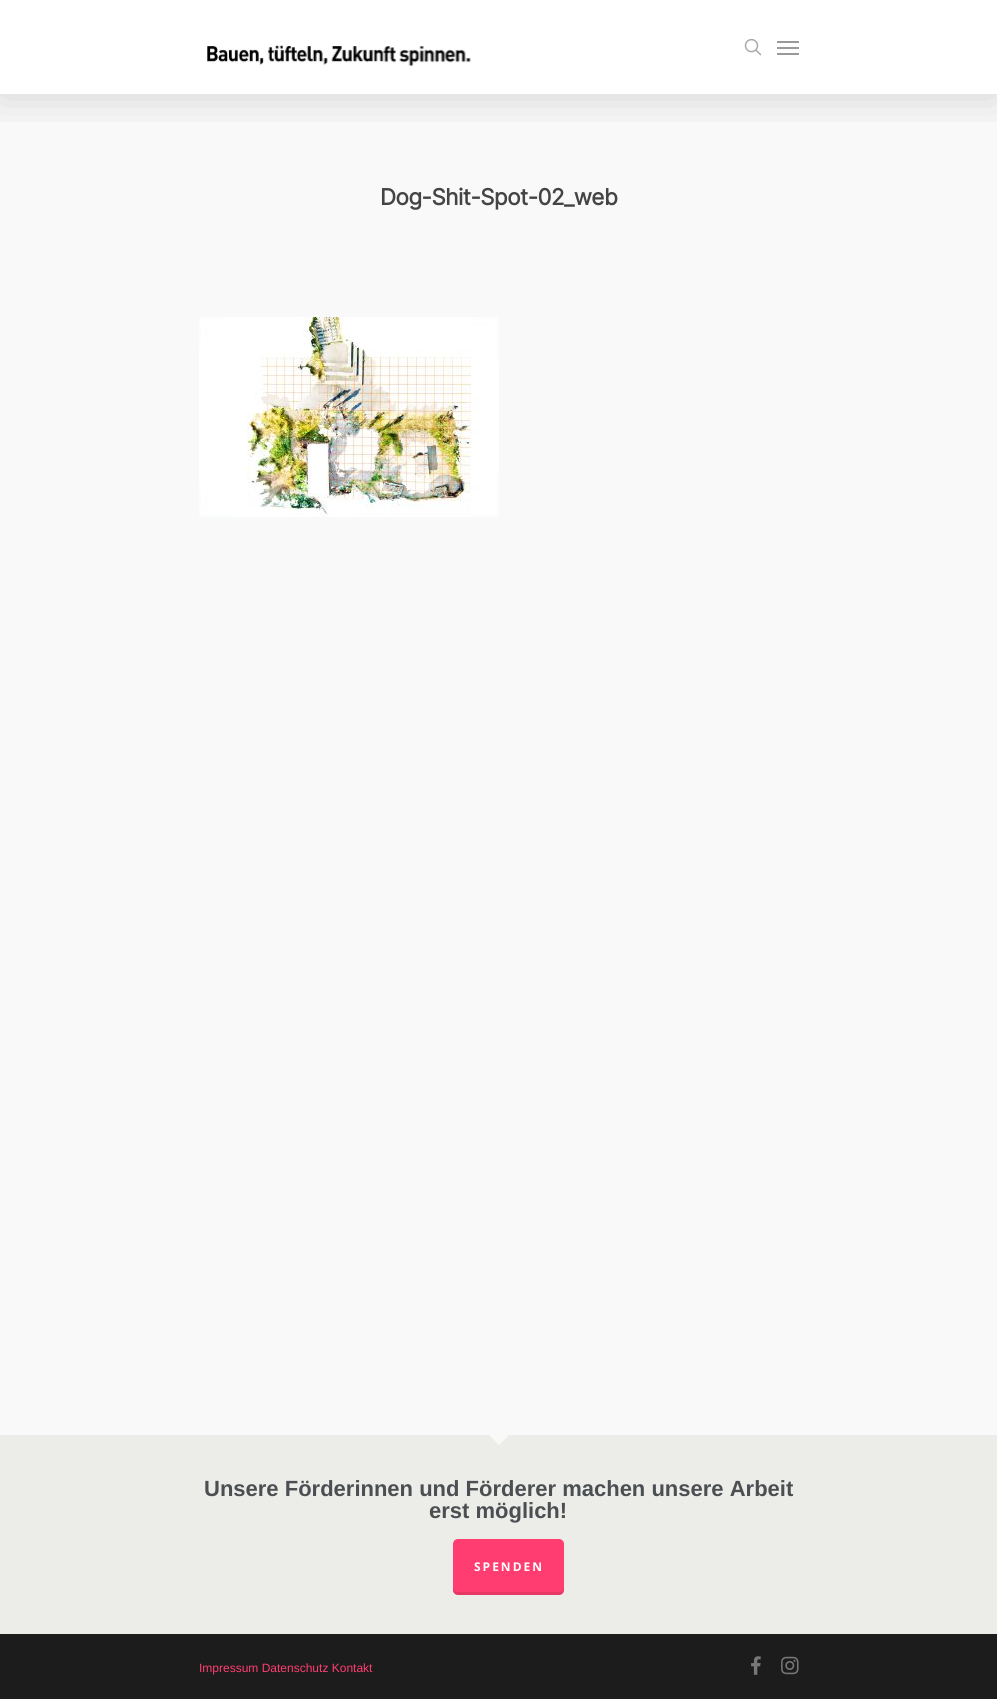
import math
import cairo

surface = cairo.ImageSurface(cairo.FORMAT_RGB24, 997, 1699)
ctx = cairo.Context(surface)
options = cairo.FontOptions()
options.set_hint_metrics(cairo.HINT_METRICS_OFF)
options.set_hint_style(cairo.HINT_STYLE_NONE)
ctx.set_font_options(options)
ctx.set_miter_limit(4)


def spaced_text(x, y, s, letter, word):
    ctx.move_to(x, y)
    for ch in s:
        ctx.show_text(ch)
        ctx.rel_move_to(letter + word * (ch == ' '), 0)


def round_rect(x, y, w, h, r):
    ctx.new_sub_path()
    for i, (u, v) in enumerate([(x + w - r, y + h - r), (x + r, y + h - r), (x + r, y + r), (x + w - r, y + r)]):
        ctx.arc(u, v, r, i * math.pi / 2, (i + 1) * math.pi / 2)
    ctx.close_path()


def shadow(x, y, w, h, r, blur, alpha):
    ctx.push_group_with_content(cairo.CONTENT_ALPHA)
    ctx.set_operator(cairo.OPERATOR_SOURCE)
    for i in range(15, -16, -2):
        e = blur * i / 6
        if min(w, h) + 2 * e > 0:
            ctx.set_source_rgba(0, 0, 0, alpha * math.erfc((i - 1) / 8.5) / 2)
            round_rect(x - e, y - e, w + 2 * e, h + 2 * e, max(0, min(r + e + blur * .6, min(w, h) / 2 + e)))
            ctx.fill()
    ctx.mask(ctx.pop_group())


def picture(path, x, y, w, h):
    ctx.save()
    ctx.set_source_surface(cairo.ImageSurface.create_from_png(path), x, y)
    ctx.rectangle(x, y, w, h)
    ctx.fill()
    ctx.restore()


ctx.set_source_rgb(1, 1, 1)
ctx.paint()
ctx.set_source_rgb(0.973, 0.973, 0.973)
ctx.rectangle(0, 94, 997, 1341)
ctx.fill()
ctx.save()
ctx.rectangle(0, 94, 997, 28)
ctx.clip()
ctx.set_source_rgb(0, 0, 0)
shadow(0, 3, 997, 94, 0, 22.5, 0.15)
ctx.restore()
picture("img1.png", 207, 45, 264, 22)
picture("img2.png", 744, 38, 18, 18)
ctx.set_source_rgb(0.6, 0.6, 0.6)
ctx.rectangle(777, 41, 22, 2)
ctx.fill()
ctx.rectangle(777, 53, 22, 2)
ctx.fill()
ctx.rectangle(777, 47, 22, 2)
ctx.fill()
ctx.select_font_face("Inter", cairo.FONT_SLANT_NORMAL, cairo.FONT_WEIGHT_BOLD)
ctx.set_font_size(22.4)
ctx.set_source_rgb(0.267, 0.267, 0.267)
spaced_text(380, 205, "Dog-Shit-Spot-02_web", -0.5, 0)
picture("img3.png", 199, 317, 300, 200)
ctx.set_source_rgb(0.925, 0.922, 0.914)
ctx.rectangle(0, 1435, 997, 199)
ctx.fill()
ctx.set_source_rgb(0.973, 0.973, 0.973)
ctx.new_path()
ctx.move_to(489, 1435)
ctx.line_to(509, 1435)
ctx.line_to(499, 1445)
ctx.close_path()
ctx.fill()
ctx.select_font_face("Liberation Sans", cairo.FONT_SLANT_NORMAL, cairo.FONT_WEIGHT_BOLD)
ctx.set_font_size(22)
ctx.set_source_rgb(0.294, 0.31, 0.322)
ctx.move_to(204, 1496)
ctx.show_text("Unsere Förderinnen und Förderer machen unsere Arbeit")
ctx.move_to(429, 1518)
ctx.show_text("erst möglich!")
ctx.set_source_rgb(1, 0.239, 0.439)
round_rect(453, 1539, 111, 56, 5)
ctx.fill()
ctx.set_source_rgba(0, 0, 0, 0.1)
ctx.new_path()
ctx.move_to(453, 1587)
ctx.line_to(453, 1590)
ctx.curve_to(453, 1593, 455, 1595, 458, 1595)
ctx.line_to(559, 1595)
ctx.curve_to(562, 1595, 564, 1593, 564, 1590)
ctx.line_to(564, 1587)
ctx.curve_to(564, 1590, 562, 1592, 559, 1592)
ctx.line_to(458, 1592)
ctx.curve_to(455, 1592, 453, 1590, 453, 1587)
ctx.close_path()
ctx.fill()
ctx.select_font_face("Open Sans", cairo.FONT_SLANT_NORMAL, cairo.FONT_WEIGHT_BOLD)
ctx.set_font_size(12)
ctx.set_source_rgb(1, 1, 1)
spaced_text(474, 1571, "SPENDEN", 2, 0)
ctx.set_source_rgb(0.11, 0.11, 0.11)
ctx.rectangle(0, 1634, 997, 65)
ctx.fill()
ctx.select_font_face("Liberation Sans")
ctx.set_source_rgb(1, 0.239, 0.439)
ctx.move_to(199, 1672)
ctx.show_text("Impressum Datenschutz Kontakt")
picture("img4.png", 751, 1656, 10, 19)
picture("img5.png", 781, 1656, 18, 19)
surface.write_to_png("page.png")
